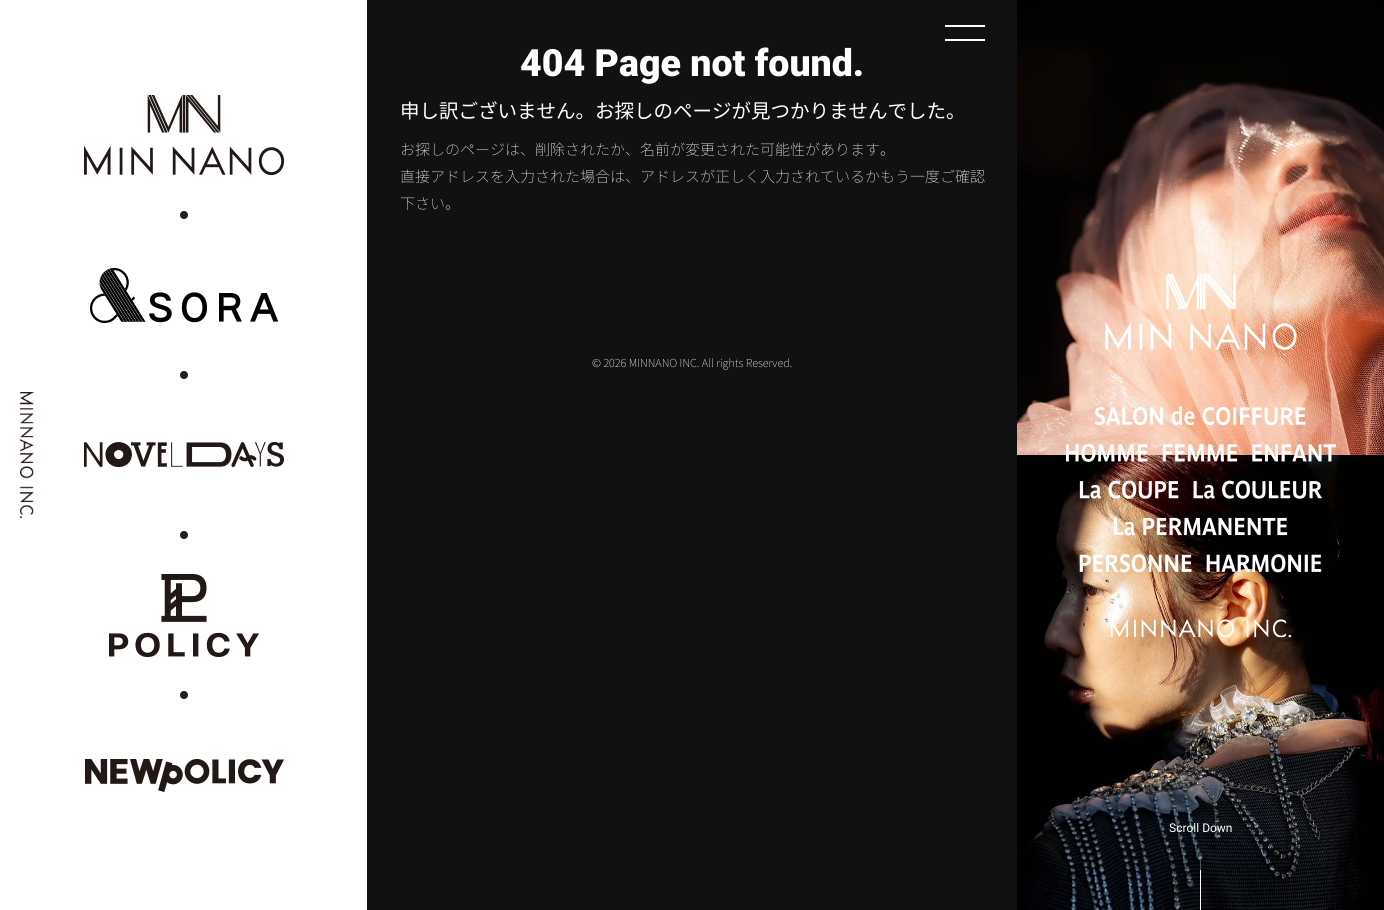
import math
import cairo

surface = cairo.ImageSurface(cairo.FORMAT_RGB24, 1384, 910)
ctx = cairo.Context(surface)
options = cairo.FontOptions()
options.set_hint_metrics(cairo.HINT_METRICS_OFF)
options.set_hint_style(cairo.HINT_STYLE_NONE)
ctx.set_font_options(options)
ctx.set_miter_limit(4)


def picture(path, x, y, w, h):
    ctx.save()
    ctx.set_source_surface(cairo.ImageSurface.create_from_png(path), x, y)
    ctx.rectangle(x, y, w, h)
    ctx.fill()
    ctx.restore()


ctx.set_source_rgb(0.067, 0.067, 0.067)
ctx.paint()
ctx.set_source_rgb(1, 1, 1)
ctx.rectangle(0, 0, 367, 910)
ctx.fill()
picture("img1.png", 20, 392, 14, 126)
picture("img2.png", 84, 95, 200, 80)
ctx.set_source_rgb(0.122, 0.129, 0.129)
ctx.arc(184, 215, 4, 0, 2 * math.pi)
ctx.fill()
picture("img3.png", 90, 268, 188, 55)
ctx.arc(184, 375, 4, 0, 2 * math.pi)
ctx.fill()
picture("img4.png", 84, 442, 200, 25)
ctx.arc(184, 535, 4, 0, 2 * math.pi)
ctx.fill()
picture("img5.png", 109, 574, 150, 83)
ctx.arc(184, 695, 4, 0, 2 * math.pi)
ctx.fill()
picture("img6.png", 85, 759, 199, 33)
ctx.set_source_rgb(1, 1, 1)
ctx.rectangle(945, 25, 40, 2)
ctx.fill()
ctx.rectangle(945, 39, 40, 2)
ctx.fill()
ctx.select_font_face("Roboto Black")
ctx.set_font_size(37.5)
ctx.move_to(520, 76)
ctx.show_text("404 Page not found.")
ctx.select_font_face("Noto Sans JP")
ctx.set_font_size(19.5)
ctx.move_to(400, 118)
ctx.show_text("申し訳ございません。お探しのページが見つかりませんでした。")
ctx.select_font_face("Noto Sans JP Thin")
ctx.set_font_size(15)
ctx.move_to(400, 155)
ctx.show_text("お探しのページは、削除されたか、名前が変更された可能性があります。")
ctx.move_to(400, 182)
ctx.show_text("直接アドレスを入力された場合は、アドレスが正しく入力されているかもう一度ご確認")
ctx.move_to(400, 209)
ctx.show_text("下さい。")
ctx.set_font_size(11)
ctx.move_to(592, 367)
ctx.show_text("© 2026 MINNANO INC. All rights Reserved.")
picture("img7.png", 1017, 0, 367, 455)
picture("img9.png", 1017, 455, 367, 455)
picture("img8.png", 1066, 273, 270, 365)
ctx.select_font_face("Roboto")
ctx.set_font_size(12)
ctx.move_to(1169, 832)
ctx.show_text("Scroll Down")
ctx.set_source_rgba(1, 1, 1, 0.3)
ctx.rectangle(1200, 860, 1, 10)
ctx.fill()
ctx.set_source_rgb(1, 1, 1)
ctx.rectangle(1200, 870, 1, 40)
ctx.fill()
surface.write_to_png("page.png")
